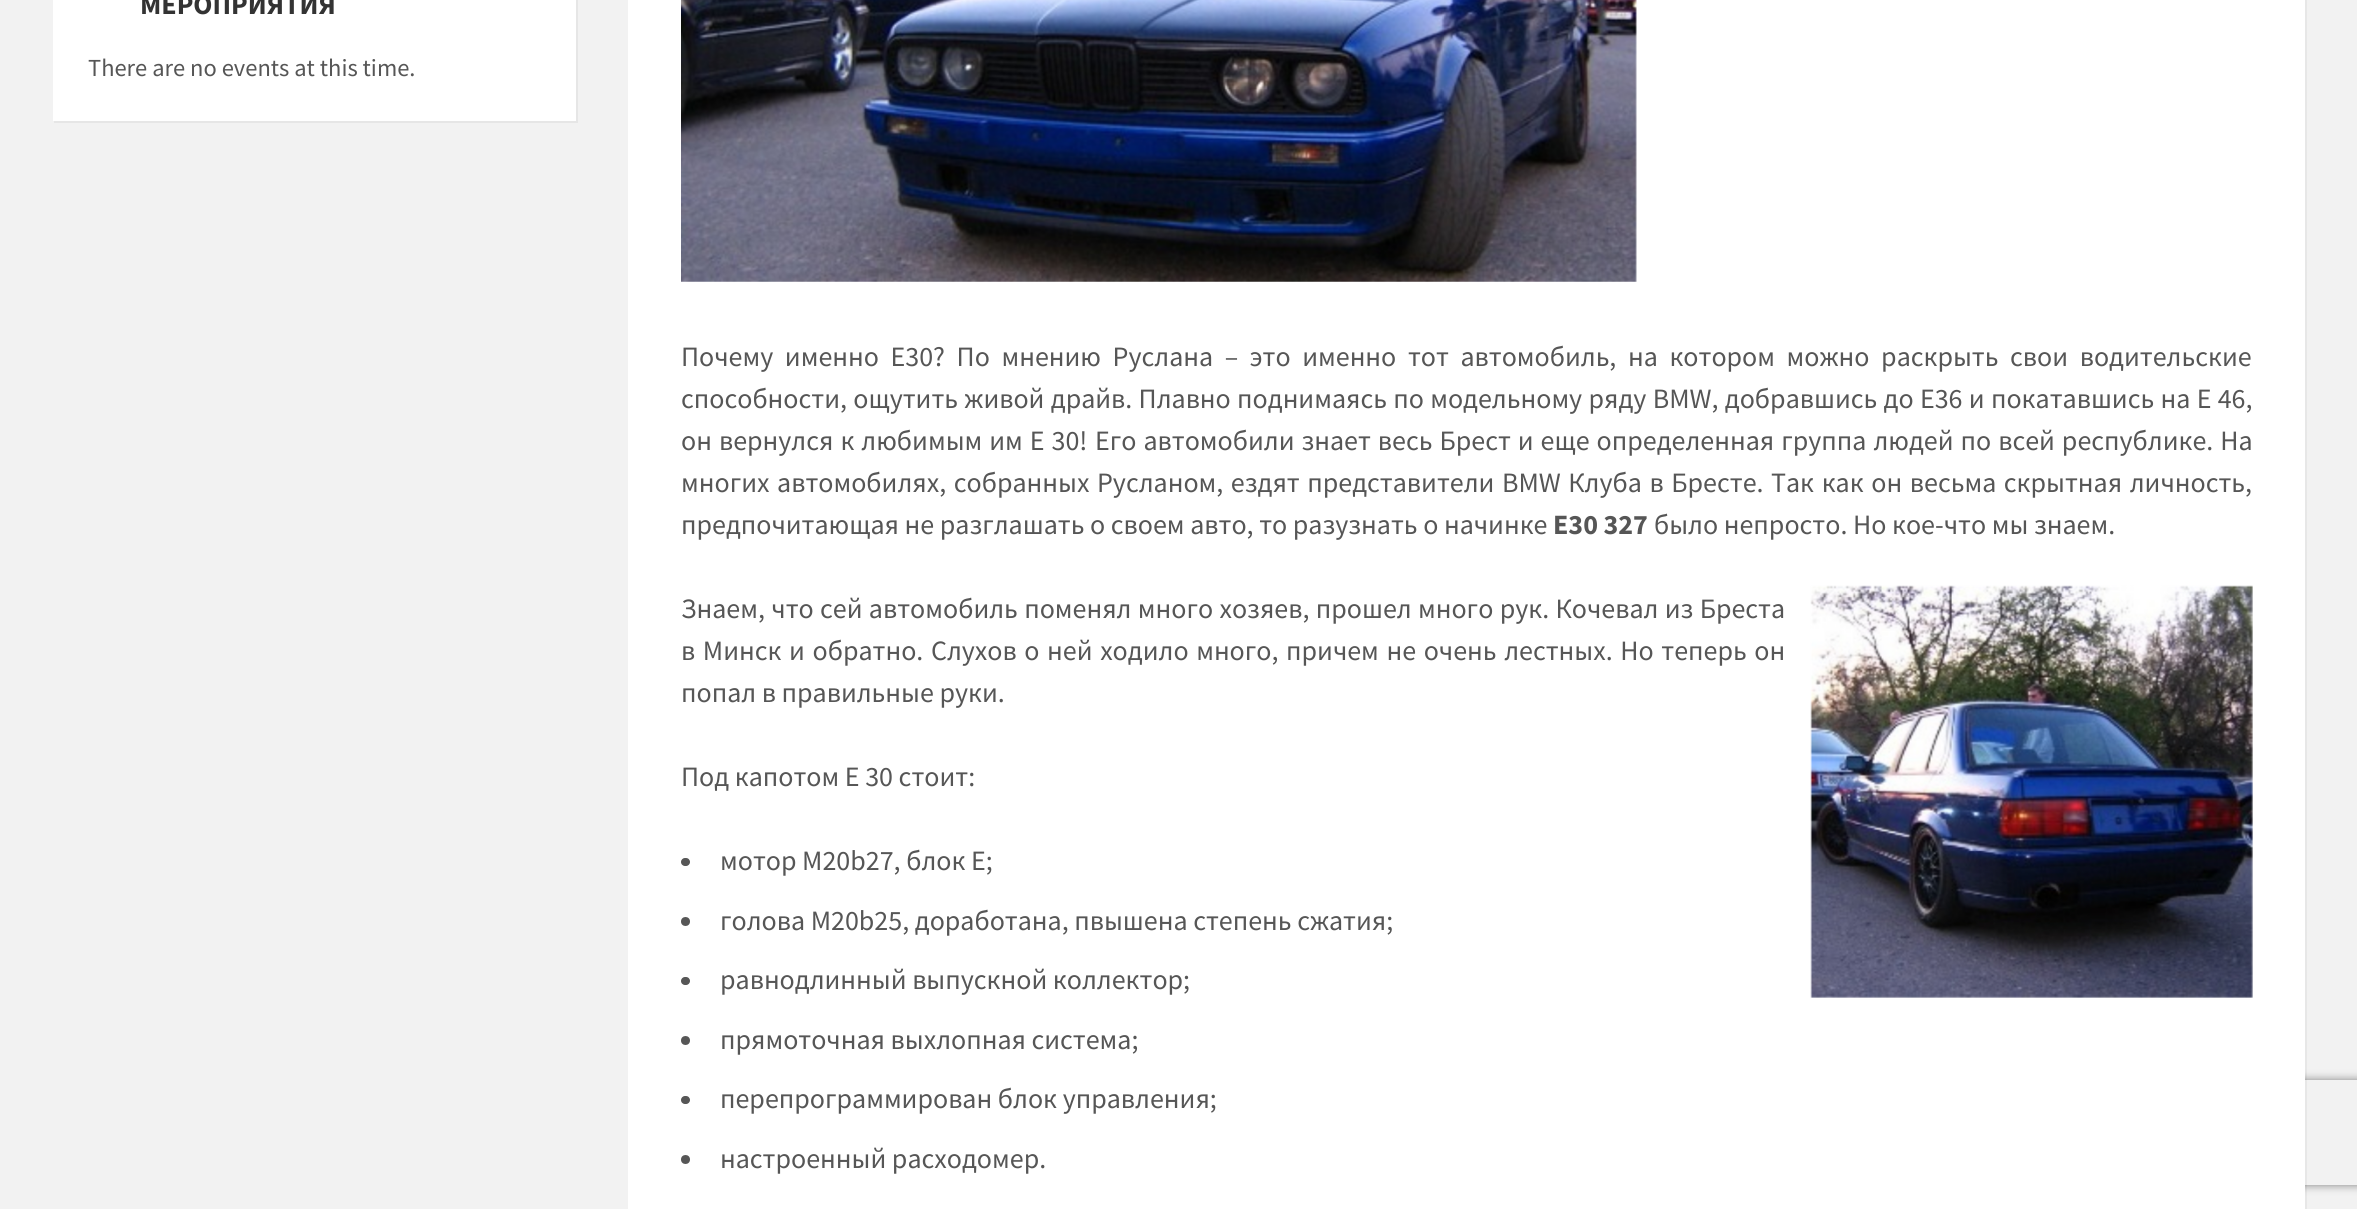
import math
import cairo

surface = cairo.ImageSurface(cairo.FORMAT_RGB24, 2357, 1209)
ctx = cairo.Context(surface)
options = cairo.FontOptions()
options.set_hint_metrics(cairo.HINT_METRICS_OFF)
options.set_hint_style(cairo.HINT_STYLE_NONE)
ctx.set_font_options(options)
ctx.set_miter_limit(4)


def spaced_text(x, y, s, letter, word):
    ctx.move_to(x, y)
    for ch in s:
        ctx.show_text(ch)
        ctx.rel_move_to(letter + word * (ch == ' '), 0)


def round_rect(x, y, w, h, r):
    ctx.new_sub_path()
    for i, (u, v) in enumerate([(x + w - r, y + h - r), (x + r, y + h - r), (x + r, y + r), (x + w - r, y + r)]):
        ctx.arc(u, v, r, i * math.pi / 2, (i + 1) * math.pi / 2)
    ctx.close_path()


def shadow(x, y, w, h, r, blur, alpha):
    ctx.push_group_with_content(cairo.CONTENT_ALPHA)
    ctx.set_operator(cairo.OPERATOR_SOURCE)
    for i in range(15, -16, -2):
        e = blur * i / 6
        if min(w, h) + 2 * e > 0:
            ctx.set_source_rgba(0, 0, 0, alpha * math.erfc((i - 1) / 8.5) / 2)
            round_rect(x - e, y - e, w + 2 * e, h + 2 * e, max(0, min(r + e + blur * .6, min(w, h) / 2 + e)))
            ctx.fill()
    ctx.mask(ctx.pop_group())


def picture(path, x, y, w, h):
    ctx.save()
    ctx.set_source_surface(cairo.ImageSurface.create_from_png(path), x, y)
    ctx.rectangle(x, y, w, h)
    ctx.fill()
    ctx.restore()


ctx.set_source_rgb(0.949, 0.949, 0.949)
ctx.paint()
ctx.set_source_rgb(0.902, 0.902, 0.902)
ctx.new_path()
ctx.move_to(54, 121)
ctx.line_to(54, 123)
ctx.line_to(578, 123)
ctx.line_to(578, -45)
ctx.line_to(576, -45)
ctx.line_to(576, 121)
ctx.close_path()
ctx.fill()
ctx.set_source_rgb(1, 1, 1)
ctx.rectangle(53, 0, 523, 121)
ctx.fill()
ctx.select_font_face("Source Sans Pro", cairo.FONT_SLANT_NORMAL, cairo.FONT_WEIGHT_BOLD)
ctx.set_font_size(28)
ctx.set_source_rgb(0.2, 0.2, 0.2)
ctx.move_to(140, 14)
ctx.show_text("МЕРОПРИЯТИЯ")
ctx.select_font_face("Source Sans Pro")
ctx.set_font_size(24.5)
ctx.set_source_rgb(0.337, 0.337, 0.337)
ctx.move_to(88, 76)
ctx.show_text("There are no events at this time.")
ctx.save()
ctx.set_fill_rule(cairo.FILL_RULE_EVEN_ODD)
ctx.new_path()
ctx.move_to(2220, 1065)
ctx.line_to(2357, 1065)
ctx.line_to(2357, 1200)
ctx.line_to(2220, 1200)
ctx.close_path()
ctx.move_to(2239, 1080)
ctx.line_to(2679, 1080)
ctx.curve_to(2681, 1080, 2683, 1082, 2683, 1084)
ctx.line_to(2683, 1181)
ctx.curve_to(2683, 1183, 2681, 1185, 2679, 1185)
ctx.line_to(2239, 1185)
ctx.curve_to(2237, 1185, 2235, 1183, 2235, 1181)
ctx.line_to(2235, 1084)
ctx.curve_to(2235, 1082, 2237, 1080, 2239, 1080)
ctx.close_path()
ctx.clip()
ctx.set_source_rgb(0.502, 0.502, 0.502)
shadow(2235, 1080, 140, 105, 4, 4.5, 1)
ctx.restore()
ctx.set_source_rgba(0, 0, 0, 0.05)
ctx.new_path()
ctx.move_to(630, 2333)
ctx.line_to(630, 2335)
ctx.line_to(2307, 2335)
ctx.line_to(2307, -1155)
ctx.line_to(2305, -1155)
ctx.line_to(2305, 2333)
ctx.close_path()
ctx.fill()
ctx.set_source_rgb(1, 1, 1)
ctx.rectangle(628, 0, 1677, 1209)
ctx.fill()
picture("img1.png", 681, 0, 956, 282)
ctx.set_font_size(28)
ctx.set_source_rgb(0.337, 0.337, 0.337)
spaced_text(681, 366, "Почему именно E30? По мнению Руслана – это именно тот автомобиль, на котором можно раскрыть свои водительские", 0, 6)
spaced_text(681, 408, "способности, ощутить живой драйв. Плавно поднимаясь по модельному ряду BMW, добравшись до E36 и покатавшись на E 46,", 0, 0.7)
spaced_text(681, 450, "он вернулся к любимым им E 30!", 0, 1.4)
spaced_text(1095, 450, "Его автомобили знает весь Брест и еще определенная группа людей по всей республике. На", 0, 1.4)
spaced_text(681, 492, "многих автомобилях, собранных Русланом, ездят представители BMW Клуба в Бресте.", 0, 2)
spaced_text(1771, 492, "Так как он весьма скрытная личность,", 0, 2)
ctx.move_to(681, 534)
ctx.show_text("предпочитающая не разглашать о своем авто, то разузнать о начинке")
ctx.select_font_face("Source Sans Pro", cairo.FONT_SLANT_NORMAL, cairo.FONT_WEIGHT_BOLD)
ctx.move_to(1553, 534)
ctx.show_text("E30 327")
ctx.select_font_face("Source Sans Pro")
ctx.move_to(1654, 534)
ctx.show_text("было непросто. Но кое-что мы знаем.")
spaced_text(681, 618, "Знаем, что сей автомобиль поменял много хозяев, прошел много рук. Кочевал из Бреста", 0, 0.75)
spaced_text(681, 660, "в Минск и обратно. Слухов о ней ходило много, причем не очень лестных. Но теперь он", 0, 2)
ctx.move_to(681, 702)
ctx.show_text("попал в правильные руки.")
picture("img2.png", 1810, 585, 443, 413)
ctx.move_to(681, 786)
ctx.show_text("Под капотом E 30 стоит:")
round_rect(681, 858, 9, 8, 4)
ctx.fill()
ctx.move_to(720, 870)
ctx.show_text("мотор М20b27, блок Е;")
ctx.new_path()
ctx.arc(685.5, 921.5, 4.5, 0, 2 * math.pi)
ctx.fill()
ctx.move_to(720, 930)
ctx.show_text("голова M20b25, доработана, пвышена степень сжатия;")
round_rect(681, 977, 9, 8, 4)
ctx.fill()
ctx.move_to(720, 989)
ctx.show_text("равнодлинный выпускной коллектор;")
ctx.new_path()
ctx.arc(685.5, 1040.5, 4.5, 0, 2 * math.pi)
ctx.fill()
ctx.move_to(720, 1049)
ctx.show_text("прямоточная выхлопная система;")
round_rect(681, 1096, 9, 8, 4)
ctx.fill()
ctx.move_to(720, 1108)
ctx.show_text("перепрограммирован блок управления;")
ctx.new_path()
ctx.arc(685.5, 1159.5, 4.5, 0, 2 * math.pi)
ctx.fill()
ctx.move_to(720, 1168)
ctx.show_text("настроенный расходомер.")
surface.write_to_png("page.png")
